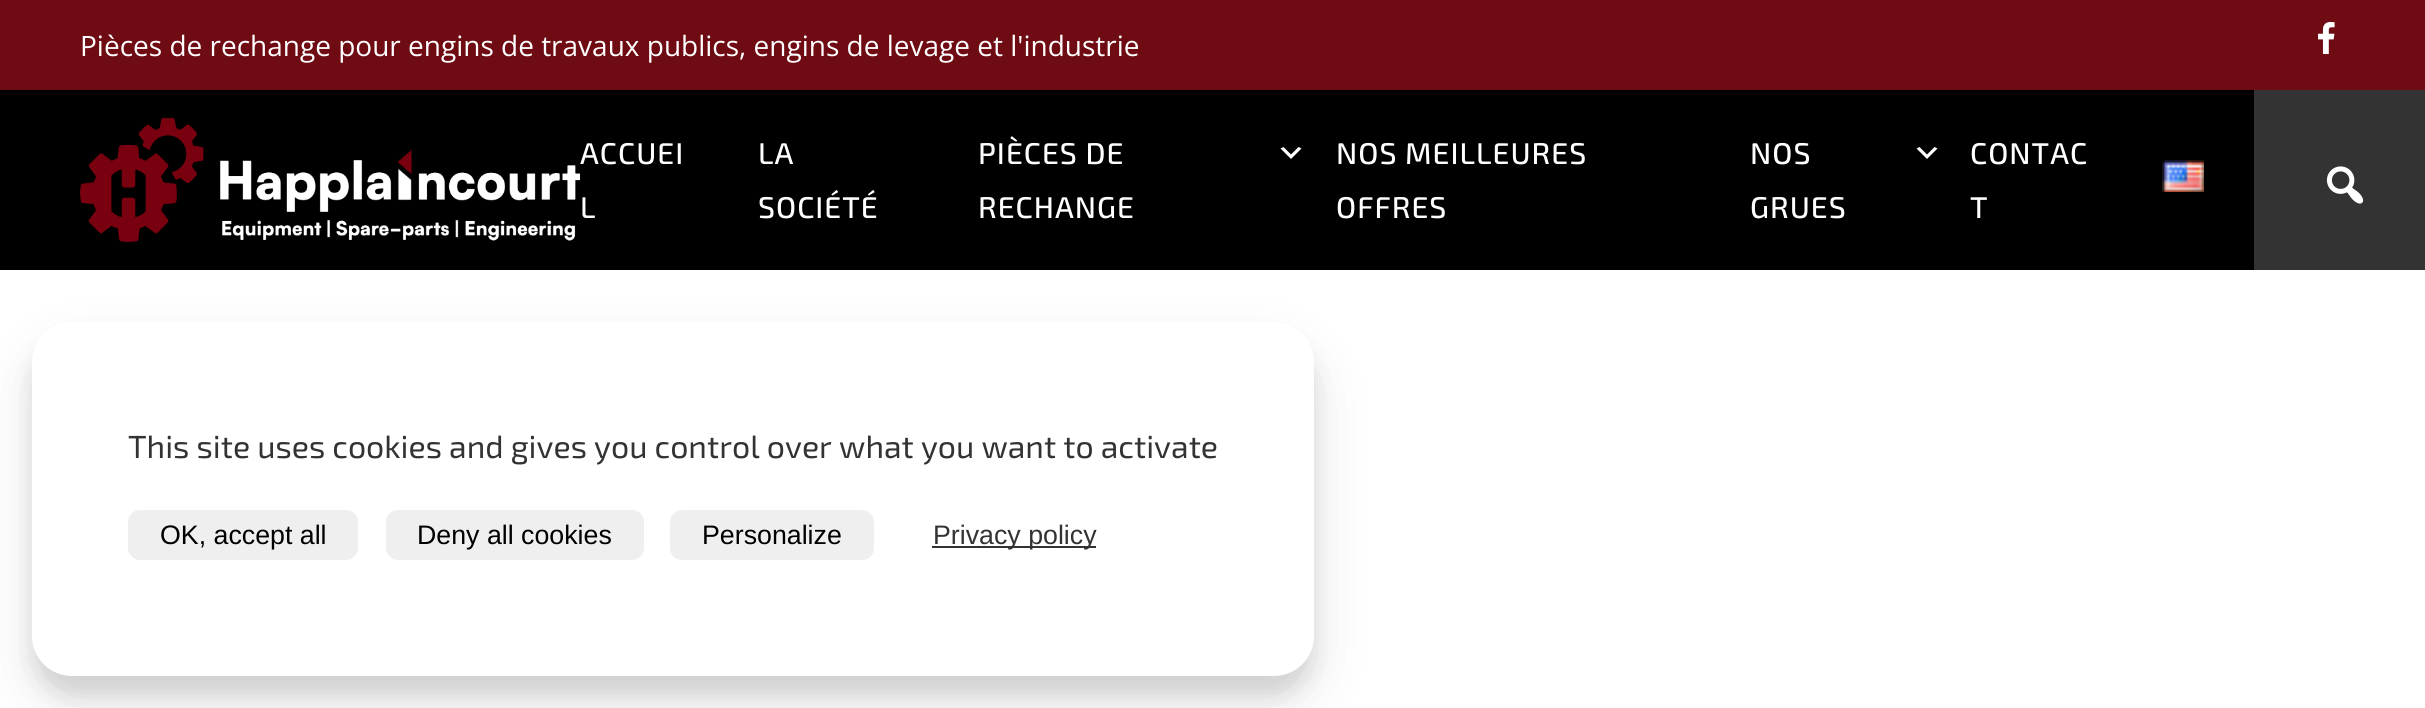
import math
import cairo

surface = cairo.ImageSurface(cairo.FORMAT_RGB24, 2425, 708)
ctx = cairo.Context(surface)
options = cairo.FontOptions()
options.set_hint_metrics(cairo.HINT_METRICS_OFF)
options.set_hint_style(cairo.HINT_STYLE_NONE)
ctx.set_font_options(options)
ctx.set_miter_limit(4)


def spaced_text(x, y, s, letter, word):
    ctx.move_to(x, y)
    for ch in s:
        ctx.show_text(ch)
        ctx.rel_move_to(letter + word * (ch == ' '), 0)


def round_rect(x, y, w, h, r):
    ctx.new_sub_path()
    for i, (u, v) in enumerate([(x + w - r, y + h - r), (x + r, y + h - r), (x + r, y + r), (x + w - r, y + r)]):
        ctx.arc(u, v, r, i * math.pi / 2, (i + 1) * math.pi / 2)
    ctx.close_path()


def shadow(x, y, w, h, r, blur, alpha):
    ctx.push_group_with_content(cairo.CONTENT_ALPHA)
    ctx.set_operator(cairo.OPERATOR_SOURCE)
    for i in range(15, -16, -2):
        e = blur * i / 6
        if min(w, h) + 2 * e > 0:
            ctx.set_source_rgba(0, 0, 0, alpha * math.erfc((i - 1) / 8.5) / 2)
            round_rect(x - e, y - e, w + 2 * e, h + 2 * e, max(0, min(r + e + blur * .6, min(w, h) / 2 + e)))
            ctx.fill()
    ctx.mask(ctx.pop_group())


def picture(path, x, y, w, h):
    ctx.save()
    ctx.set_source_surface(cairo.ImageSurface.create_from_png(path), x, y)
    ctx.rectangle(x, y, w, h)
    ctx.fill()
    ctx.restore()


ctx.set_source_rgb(1, 1, 1)
ctx.paint()
ctx.set_source_rgb(0, 0, 0)
ctx.rectangle(0, 90, 2254, 180)
ctx.fill()
ctx.set_source_rgb(0.431, 0.043, 0.075)
ctx.rectangle(0, 0, 2425, 90)
ctx.fill()
ctx.select_font_face("Open Sans")
ctx.set_font_size(28)
ctx.set_source_rgb(1, 1, 1)
ctx.move_to(80, 56)
ctx.show_text("Pièces de rechange pour engins de travaux publics, engins de levage et l'industrie")
picture("img1.png", 2318, 22, 17, 32)
picture("img2.png", 80, 117, 500, 125)
ctx.select_font_face("Exo 2 Medium")
ctx.set_font_size(30)
spaced_text(580, 164, "ACCUEI", 1, 0)
spaced_text(580, 218, "L", 1, 0)
spaced_text(758, 164, "LA", 1, 0)
spaced_text(758, 218, "SOCIÉTÉ", 1, 0)
spaced_text(978, 164, "PIÈCES DE", 1, 0)
ctx.new_path()
ctx.move_to(1283.5, 147)
ctx.line_to(1291, 154.5)
ctx.line_to(1298.5, 147)
ctx.line_to(1301.5, 148.5)
ctx.line_to(1291, 159)
ctx.line_to(1280.5, 148.5)
ctx.close_path()
ctx.fill()
spaced_text(978, 218, "RECHANGE", 1, 0)
spaced_text(1336, 164, "NOS MEILLEURES", 1, 0)
spaced_text(1336, 218, "OFFRES", 1, 0)
spaced_text(1750, 164, "NOS", 1, 0)
ctx.new_path()
ctx.move_to(1919.5, 147)
ctx.line_to(1927, 154.5)
ctx.line_to(1934.5, 147)
ctx.line_to(1937.5, 148.5)
ctx.line_to(1927, 159)
ctx.line_to(1916.5, 148.5)
ctx.close_path()
ctx.fill()
spaced_text(1750, 218, "GRUES", 1, 0)
spaced_text(1970, 164, "CONTAC", 1, 0)
spaced_text(1970, 218, "T", 1, 0)
picture("img3.png", 2162, 160, 42, 32)
ctx.set_source_rgb(0.2, 0.2, 0.2)
ctx.rectangle(2254, 90, 171, 180)
ctx.fill()
picture("img4.png", 2326, 166, 38, 38)
ctx.set_source_rgb(0, 0, 0)
shadow(32, 342, 1282, 354, 40, 10, 0.1)
shadow(32, 350, 1282, 354, 40, 28, 0.1)
ctx.set_source_rgb(1, 1, 1)
round_rect(32, 322, 1282, 354, 40)
ctx.fill()
ctx.select_font_face("Exo 2")
ctx.set_font_size(32)
ctx.set_source_rgb(0.2, 0.2, 0.2)
ctx.move_to(128, 458)
ctx.show_text("This site uses cookies and gives you control over what you want to activate")
ctx.set_source_rgb(0.937, 0.937, 0.937)
round_rect(128, 510, 230, 50, 12)
ctx.fill()
ctx.select_font_face("Liberation Sans")
ctx.set_font_size(26.75)
ctx.set_source_rgb(0, 0, 0)
ctx.move_to(160, 544)
ctx.show_text("OK, accept all")
ctx.set_source_rgb(0.937, 0.937, 0.937)
round_rect(386, 510, 258, 50, 12)
ctx.fill()
ctx.set_source_rgb(0, 0, 0)
ctx.move_to(417, 544)
ctx.show_text("Deny all cookies")
ctx.set_source_rgb(0.937, 0.937, 0.937)
round_rect(670, 510, 204, 50, 12)
ctx.fill()
ctx.set_source_rgb(0, 0, 0)
ctx.move_to(702, 544)
ctx.show_text("Personalize")
ctx.set_source_rgb(0.2, 0.2, 0.2)
ctx.rectangle(932, 546, 164, 2)
ctx.fill()
ctx.move_to(933, 544)
ctx.show_text("Privacy policy")
surface.write_to_png("page.png")
